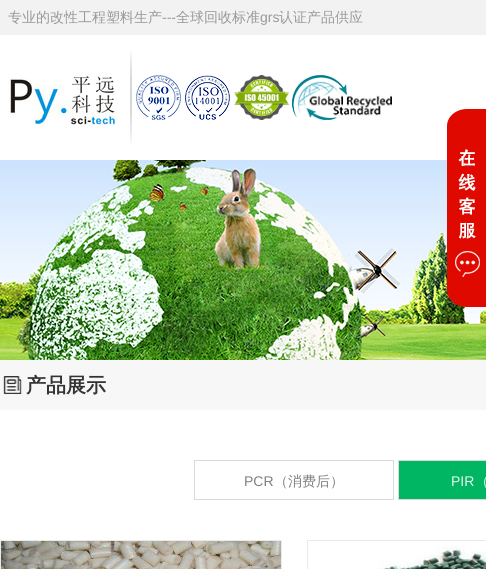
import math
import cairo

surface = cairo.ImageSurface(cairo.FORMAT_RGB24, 486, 569)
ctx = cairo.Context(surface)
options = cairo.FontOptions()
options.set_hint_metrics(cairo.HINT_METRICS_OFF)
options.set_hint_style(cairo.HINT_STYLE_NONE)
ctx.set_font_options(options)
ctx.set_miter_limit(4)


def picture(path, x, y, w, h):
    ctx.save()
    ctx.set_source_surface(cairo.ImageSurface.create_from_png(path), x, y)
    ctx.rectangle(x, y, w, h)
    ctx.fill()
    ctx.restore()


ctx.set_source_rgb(1, 1, 1)
ctx.paint()
ctx.set_source_rgb(0.949, 0.949, 0.949)
ctx.rectangle(0, 0, 486, 35)
ctx.fill()
ctx.select_font_face("WenQuanYi Zen Hei Medium")
ctx.set_font_size(14)
ctx.set_source_rgb(0.6, 0.6, 0.6)
ctx.move_to(8, 22)
ctx.show_text("专业的改性工程塑料生产")
ctx.select_font_face("Liberation Sans")
ctx.move_to(162, 22)
ctx.show_text("---")
ctx.select_font_face("WenQuanYi Zen Hei Medium")
ctx.move_to(176, 22)
ctx.show_text("全球回收标准")
ctx.select_font_face("Liberation Sans")
ctx.move_to(260, 22)
ctx.show_text("grs")
ctx.select_font_face("WenQuanYi Zen Hei Medium")
ctx.move_to(279, 22)
ctx.show_text("认证产品供应")
picture("img1.png", 8, 74, 110, 51)
picture("img2.png", 130, 51, 2, 94)
picture("img3.png", 136, 75, 45, 45)
picture("img4.png", 185, 75, 45, 45)
picture("img5.png", 234, 75, 55, 45)
picture("img6.png", 292, 75, 100, 45)
picture("img8.png", 0, 160, 486, 200)
picture("img7.png", 447, 109, 39, 198)
ctx.set_source_rgb(0.965, 0.965, 0.965)
ctx.rectangle(0, 360, 486, 50)
ctx.fill()
picture("img9.png", 3, 376, 19, 18)
ctx.select_font_face("WenQuanYi Zen Hei", cairo.FONT_SLANT_NORMAL, cairo.FONT_WEIGHT_BOLD)
ctx.set_font_size(20)
ctx.set_source_rgb(0.2, 0.2, 0.2)
ctx.move_to(26, 392)
ctx.show_text("产品展示")
ctx.rectangle(194.5, 460.5, 199, 39)
ctx.set_source_rgb(0.851, 0.851, 0.851)
ctx.set_line_width(1)
ctx.stroke()
ctx.select_font_face("Liberation Sans")
ctx.set_font_size(14)
ctx.set_source_rgb(0.502, 0.502, 0.502)
ctx.move_to(244, 486)
ctx.show_text("PCR")
ctx.select_font_face("WenQuanYi Zen Hei Medium")
ctx.move_to(274, 486)
ctx.show_text("（消费后）")
ctx.set_source_rgb(0, 0.714, 0.388)
ctx.rectangle(398.5, 460.5, 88, 39)
ctx.fill_preserve()
ctx.set_source_rgb(0.851, 0.851, 0.851)
ctx.stroke()
ctx.select_font_face("Liberation Sans")
ctx.set_source_rgb(0.914, 0.961, 0.941)
ctx.move_to(451, 486)
ctx.show_text("PIR")
ctx.select_font_face("WenQuanYi Zen Hei Medium")
ctx.move_to(475, 486)
ctx.show_text("（")
ctx.rectangle(0.5, 540.5, 281, 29)
ctx.set_source_rgb(0.914, 0.914, 0.914)
ctx.stroke()
picture("img10.png", 1, 541, 280, 28)
ctx.rectangle(307.5, 540.5, 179, 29)
ctx.stroke()
picture("img11.png", 378, 546, 108, 23)
surface.write_to_png("page.png")
